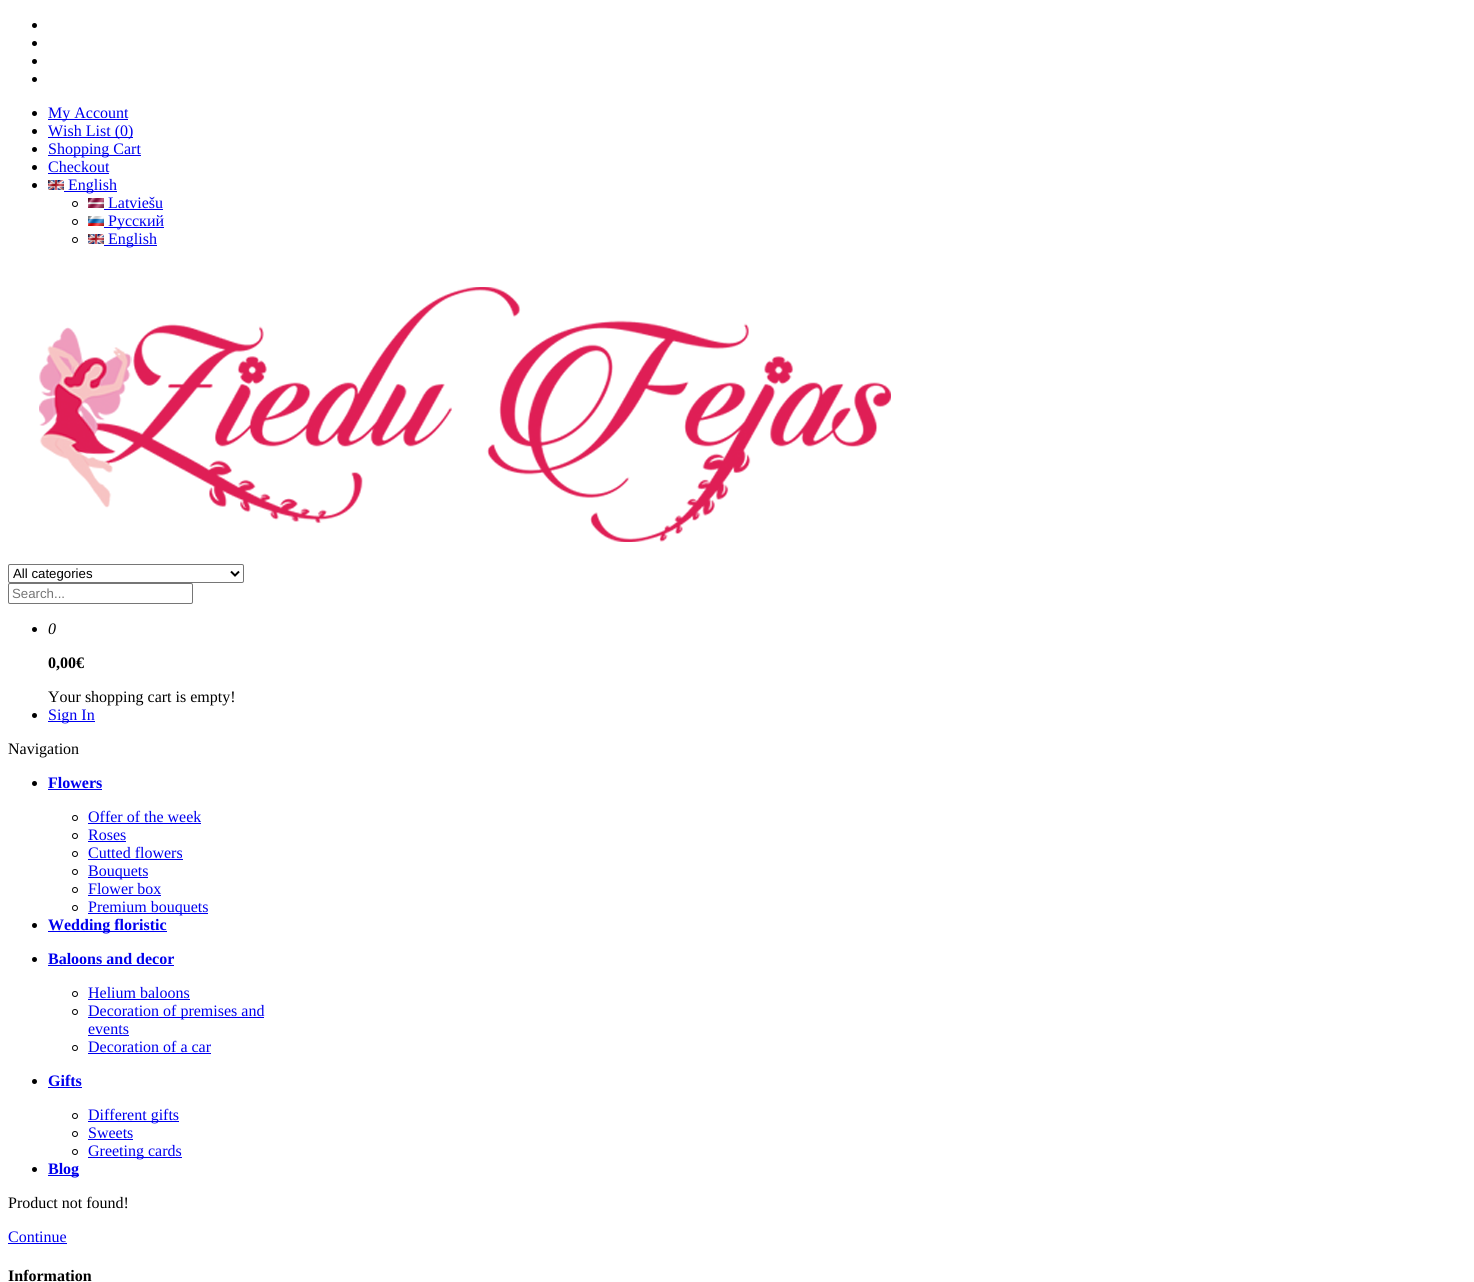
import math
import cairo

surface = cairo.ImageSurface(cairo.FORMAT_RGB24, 1474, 1282)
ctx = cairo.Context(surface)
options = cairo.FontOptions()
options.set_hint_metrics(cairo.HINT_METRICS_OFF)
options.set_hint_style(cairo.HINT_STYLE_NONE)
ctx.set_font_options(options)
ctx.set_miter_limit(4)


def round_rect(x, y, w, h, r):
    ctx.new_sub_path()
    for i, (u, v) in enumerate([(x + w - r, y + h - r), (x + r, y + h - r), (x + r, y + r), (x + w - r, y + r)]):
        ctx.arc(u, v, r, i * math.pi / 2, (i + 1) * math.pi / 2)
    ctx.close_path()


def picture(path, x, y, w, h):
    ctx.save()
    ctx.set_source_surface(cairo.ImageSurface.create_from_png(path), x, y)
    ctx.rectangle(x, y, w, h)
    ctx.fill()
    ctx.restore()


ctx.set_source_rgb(1, 1, 1)
ctx.paint()
ctx.set_source_rgb(0, 0, 0)
ctx.arc(34.5, 25.5, 2.5, 0, 2 * math.pi)
ctx.fill()
ctx.arc(34.5, 43.5, 2.5, 0, 2 * math.pi)
ctx.fill()
ctx.arc(34.5, 61.5, 2.5, 0, 2 * math.pi)
ctx.fill()
ctx.arc(34.5, 79.5, 2.5, 0, 2 * math.pi)
ctx.fill()
ctx.arc(34.5, 113.5, 2.5, 0, 2 * math.pi)
ctx.fill()
ctx.set_source_rgb(0, 0, 0.933)
ctx.rectangle(48, 119, 80, 1)
ctx.fill()
ctx.select_font_face("Liberation Serif")
ctx.set_font_size(16)
ctx.move_to(48, 118)
ctx.show_text("My Account")
ctx.set_source_rgb(0, 0, 0)
ctx.new_path()
ctx.arc(34.5, 131.5, 2.5, 0, 2 * math.pi)
ctx.fill()
ctx.set_source_rgb(0, 0, 0.933)
ctx.rectangle(48, 137, 85, 1)
ctx.fill()
ctx.move_to(48, 136)
ctx.show_text("Wish List (0)")
ctx.set_source_rgb(0, 0, 0)
ctx.new_path()
ctx.arc(34.5, 149.5, 2.5, 0, 2 * math.pi)
ctx.fill()
ctx.set_source_rgb(0, 0, 0.933)
ctx.rectangle(48, 155, 93, 1)
ctx.fill()
ctx.move_to(48, 154)
ctx.show_text("Shopping Cart")
ctx.set_source_rgb(0, 0, 0)
ctx.new_path()
ctx.arc(34.5, 167.5, 2.5, 0, 2 * math.pi)
ctx.fill()
ctx.set_source_rgb(0, 0, 0.933)
ctx.move_to(48, 172)
ctx.show_text("Checkout")
ctx.rectangle(48, 173, 61, 1)
ctx.fill()
ctx.set_source_rgb(0, 0, 0)
ctx.arc(34.5, 185.5, 2.5, 0, 2 * math.pi)
ctx.fill()
picture("img1.png", 48, 180, 16, 10)
ctx.set_source_rgb(0, 0, 0.933)
ctx.rectangle(64, 191, 53, 1)
ctx.fill()
ctx.move_to(68, 190)
ctx.show_text("English")
ctx.new_path()
ctx.arc(75, 204, 2.5, 0, 2 * math.pi)
ctx.set_source_rgb(0, 0, 0)
ctx.set_line_width(1)
ctx.stroke()
picture("img2.png", 88, 198, 16, 10)
ctx.set_source_rgb(0, 0, 0.933)
ctx.move_to(108, 208)
ctx.show_text("Latviešu")
ctx.rectangle(104, 209, 59, 1)
ctx.fill()
ctx.arc(75, 222, 2.5, 0, 2 * math.pi)
ctx.set_source_rgb(0, 0, 0)
ctx.stroke()
picture("img3.png", 88, 216, 16, 10)
ctx.set_source_rgb(0, 0, 0.933)
ctx.rectangle(104, 227, 60, 1)
ctx.fill()
ctx.move_to(108, 226)
ctx.show_text("Русский")
ctx.new_path()
ctx.arc(75, 240, 2.5, 0, 2 * math.pi)
ctx.set_source_rgb(0, 0, 0)
ctx.stroke()
picture("img1.png", 88, 234, 16, 10)
ctx.set_source_rgb(0, 0, 0.933)
ctx.rectangle(104, 245, 53, 1)
ctx.fill()
ctx.move_to(108, 244)
ctx.show_text("English")
picture("img4.png", 39, 287, 852, 255)
round_rect(8.5, 564.5, 235, 18, 1.5)
ctx.set_source_rgb(0.463, 0.463, 0.463)
ctx.stroke()
ctx.new_path()
ctx.move_to(231, 571.5)
ctx.line_to(235, 575.5)
ctx.line_to(239, 571.5)
ctx.set_source_rgb(0, 0, 0)
ctx.set_line_width(2)
ctx.stroke()
ctx.select_font_face("Liberation Sans")
ctx.set_font_size(13.25)
ctx.move_to(13, 578)
ctx.show_text("All categories")
round_rect(8.5, 583.5, 184, 20, 1.5)
ctx.set_source_rgb(0.463, 0.463, 0.463)
ctx.set_line_width(1)
ctx.stroke()
ctx.set_source_rgb(0.459, 0.459, 0.459)
ctx.move_to(12, 598)
ctx.show_text("Search...")
ctx.set_source_rgb(0, 0, 0)
ctx.new_path()
ctx.arc(34.5, 629.5, 2.5, 0, 2 * math.pi)
ctx.fill()
ctx.select_font_face("Liberation Serif", cairo.FONT_SLANT_ITALIC)
ctx.set_font_size(16)
ctx.move_to(48, 634)
ctx.show_text("0")
ctx.select_font_face("Liberation Serif", cairo.FONT_SLANT_NORMAL, cairo.FONT_WEIGHT_BOLD)
ctx.move_to(48, 668)
ctx.show_text("0,00€")
ctx.select_font_face("Liberation Serif")
ctx.move_to(48, 702)
ctx.show_text("Your shopping cart is empty!")
ctx.new_path()
ctx.arc(34.5, 715.5, 2.5, 0, 2 * math.pi)
ctx.fill()
ctx.set_source_rgb(0, 0, 0.933)
ctx.rectangle(48, 721, 47, 1)
ctx.fill()
ctx.move_to(48, 720)
ctx.show_text("Sign In")
ctx.set_source_rgb(0, 0, 0)
ctx.move_to(8, 754)
ctx.show_text("Navigation")
ctx.new_path()
ctx.arc(34.5, 783.5, 2.5, 0, 2 * math.pi)
ctx.fill()
ctx.select_font_face("Liberation Serif", cairo.FONT_SLANT_NORMAL, cairo.FONT_WEIGHT_BOLD)
ctx.set_source_rgb(0, 0, 0.933)
ctx.move_to(48, 788)
ctx.show_text("Flowers")
ctx.rectangle(48, 789, 54, 1)
ctx.fill()
ctx.arc(75, 818, 2.5, 0, 2 * math.pi)
ctx.set_source_rgb(0, 0, 0)
ctx.stroke()
ctx.select_font_face("Liberation Serif")
ctx.set_source_rgb(0, 0, 0.933)
ctx.move_to(88, 822)
ctx.show_text("Offer of the week")
ctx.rectangle(88, 823, 113, 1)
ctx.fill()
ctx.arc(75, 836, 2.5, 0, 2 * math.pi)
ctx.set_source_rgb(0, 0, 0)
ctx.stroke()
ctx.set_source_rgb(0, 0, 0.933)
ctx.move_to(88, 840)
ctx.show_text("Roses")
ctx.rectangle(88, 841, 38, 1)
ctx.fill()
ctx.arc(75, 854, 2.5, 0, 2 * math.pi)
ctx.set_source_rgb(0, 0, 0)
ctx.stroke()
ctx.set_source_rgb(0, 0, 0.933)
ctx.move_to(88, 858)
ctx.show_text("Сutted flowers")
ctx.rectangle(88, 859, 95, 1)
ctx.fill()
ctx.arc(75, 872, 2.5, 0, 2 * math.pi)
ctx.set_source_rgb(0, 0, 0)
ctx.stroke()
ctx.set_source_rgb(0, 0, 0.933)
ctx.rectangle(88, 877, 60, 1)
ctx.fill()
ctx.move_to(88, 876)
ctx.show_text("Bouquets")
ctx.new_path()
ctx.arc(75, 890, 2.5, 0, 2 * math.pi)
ctx.set_source_rgb(0, 0, 0)
ctx.stroke()
ctx.set_source_rgb(0, 0, 0.933)
ctx.move_to(88, 894)
ctx.show_text("Flower box")
ctx.rectangle(88, 895, 73, 1)
ctx.fill()
ctx.arc(75, 908, 2.5, 0, 2 * math.pi)
ctx.set_source_rgb(0, 0, 0)
ctx.stroke()
ctx.set_source_rgb(0, 0, 0.933)
ctx.rectangle(88, 913, 120, 1)
ctx.fill()
ctx.move_to(88, 912)
ctx.show_text("Premium bouquets")
ctx.set_source_rgb(0, 0, 0)
ctx.new_path()
ctx.arc(34.5, 925.5, 2.5, 0, 2 * math.pi)
ctx.fill()
ctx.set_source_rgb(0, 0, 0.933)
ctx.rectangle(48, 931, 119, 1)
ctx.fill()
ctx.select_font_face("Liberation Serif", cairo.FONT_SLANT_NORMAL, cairo.FONT_WEIGHT_BOLD)
ctx.move_to(48, 930)
ctx.show_text("Wedding floristic")
ctx.set_source_rgb(0, 0, 0)
ctx.new_path()
ctx.arc(34.5, 959.5, 2.5, 0, 2 * math.pi)
ctx.fill()
ctx.set_source_rgb(0, 0, 0.933)
ctx.move_to(48, 964)
ctx.show_text("Baloons and decor")
ctx.rectangle(48, 965, 126, 1)
ctx.fill()
ctx.arc(75, 994, 2.5, 0, 2 * math.pi)
ctx.set_source_rgb(0, 0, 0)
ctx.stroke()
ctx.select_font_face("Liberation Serif")
ctx.set_source_rgb(0, 0, 0.933)
ctx.move_to(88, 998)
ctx.show_text("Helium baloons")
ctx.rectangle(88, 999, 102, 1)
ctx.fill()
ctx.arc(75, 1012, 2.5, 0, 2 * math.pi)
ctx.set_source_rgb(0, 0, 0)
ctx.stroke()
ctx.set_source_rgb(0, 0, 0.933)
ctx.rectangle(88, 1017, 176, 1)
ctx.fill()
ctx.move_to(88, 1016)
ctx.show_text("Decoration of premises and")
ctx.move_to(88, 1034)
ctx.show_text("events")
ctx.rectangle(88, 1035, 41, 1)
ctx.fill()
ctx.arc(75, 1048, 2.5, 0, 2 * math.pi)
ctx.set_source_rgb(0, 0, 0)
ctx.stroke()
ctx.set_source_rgb(0, 0, 0.933)
ctx.move_to(88, 1052)
ctx.show_text("Decoration of a car")
ctx.rectangle(88, 1053, 123, 1)
ctx.fill()
ctx.set_source_rgb(0, 0, 0)
ctx.arc(34.5, 1081.5, 2.5, 0, 2 * math.pi)
ctx.fill()
ctx.select_font_face("Liberation Serif", cairo.FONT_SLANT_NORMAL, cairo.FONT_WEIGHT_BOLD)
ctx.set_source_rgb(0, 0, 0.933)
ctx.move_to(48, 1086)
ctx.show_text("Gifts")
ctx.rectangle(48, 1087, 34, 1)
ctx.fill()
ctx.arc(75, 1116, 2.5, 0, 2 * math.pi)
ctx.set_source_rgb(0, 0, 0)
ctx.stroke()
ctx.set_source_rgb(0, 0, 0.933)
ctx.rectangle(88, 1121, 91, 1)
ctx.fill()
ctx.select_font_face("Liberation Serif")
ctx.move_to(88, 1120)
ctx.show_text("Different gifts")
ctx.new_path()
ctx.arc(75, 1134, 2.5, 0, 2 * math.pi)
ctx.set_source_rgb(0, 0, 0)
ctx.stroke()
ctx.set_source_rgb(0, 0, 0.933)
ctx.move_to(88, 1138)
ctx.show_text("Sweets")
ctx.rectangle(88, 1139, 45, 1)
ctx.fill()
ctx.arc(75, 1152, 2.5, 0, 2 * math.pi)
ctx.set_source_rgb(0, 0, 0)
ctx.stroke()
ctx.set_source_rgb(0, 0, 0.933)
ctx.rectangle(88, 1157, 94, 1)
ctx.fill()
ctx.move_to(88, 1156)
ctx.show_text("Greeting cards")
ctx.set_source_rgb(0, 0, 0)
ctx.new_path()
ctx.arc(34.5, 1169.5, 2.5, 0, 2 * math.pi)
ctx.fill()
ctx.set_source_rgb(0, 0, 0.933)
ctx.rectangle(48, 1175, 31, 1)
ctx.fill()
ctx.select_font_face("Liberation Serif", cairo.FONT_SLANT_NORMAL, cairo.FONT_WEIGHT_BOLD)
ctx.move_to(48, 1174)
ctx.show_text("Blog")
ctx.select_font_face("Liberation Serif")
ctx.set_source_rgb(0, 0, 0)
ctx.move_to(8, 1208)
ctx.show_text("Product not found!")
ctx.set_source_rgb(0, 0, 0.933)
ctx.move_to(8, 1242)
ctx.show_text("Continue")
ctx.rectangle(8, 1243, 59, 1)
ctx.fill()
ctx.select_font_face("Liberation Serif", cairo.FONT_SLANT_NORMAL, cairo.FONT_WEIGHT_BOLD)
ctx.set_source_rgb(0, 0, 0)
ctx.move_to(8, 1281)
ctx.show_text("Information")
surface.write_to_png("page.png")
